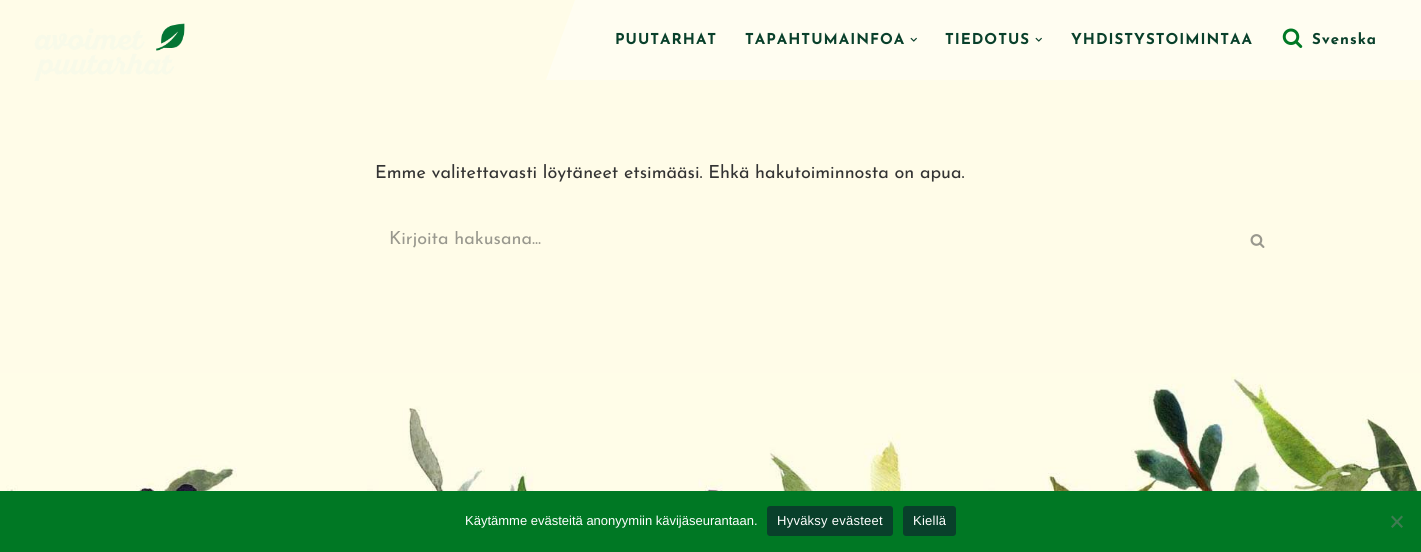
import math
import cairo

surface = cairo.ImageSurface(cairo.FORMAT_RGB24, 1421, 552)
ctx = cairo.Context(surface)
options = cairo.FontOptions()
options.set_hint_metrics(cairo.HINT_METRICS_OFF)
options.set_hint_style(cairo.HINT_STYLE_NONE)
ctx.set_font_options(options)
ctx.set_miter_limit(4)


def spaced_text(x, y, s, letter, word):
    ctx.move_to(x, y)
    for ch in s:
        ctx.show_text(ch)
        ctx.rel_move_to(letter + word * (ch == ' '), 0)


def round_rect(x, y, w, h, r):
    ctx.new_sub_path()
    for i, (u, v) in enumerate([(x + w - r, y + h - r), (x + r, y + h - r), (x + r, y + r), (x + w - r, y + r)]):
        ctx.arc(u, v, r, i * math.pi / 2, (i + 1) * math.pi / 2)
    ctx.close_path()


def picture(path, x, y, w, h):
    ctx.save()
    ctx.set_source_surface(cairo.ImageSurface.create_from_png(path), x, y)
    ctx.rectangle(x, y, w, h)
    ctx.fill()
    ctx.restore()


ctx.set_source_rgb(1, 0.988, 0.91)
ctx.paint()
picture("img1.png", 34, 23, 151, 58)
ctx.set_source_rgb(1, 0.992, 0.945)
ctx.rectangle(596, 0, 825, 80)
ctx.fill()
ctx.new_path()
ctx.move_to(575, 0)
ctx.line_to(625, 0)
ctx.line_to(596, 80)
ctx.line_to(546, 80)
ctx.close_path()
ctx.fill()
ctx.select_font_face("Josefin Sans", cairo.FONT_SLANT_NORMAL, cairo.FONT_WEIGHT_BOLD)
ctx.set_font_size(15)
ctx.set_source_rgb(0.039, 0.251, 0.169)
spaced_text(615, 44, "PUUTARHAT", 1, 0)
spaced_text(745, 44, "TAPAHTUMAINFOA", 1, 0)
picture("img2.png", 910, 37, 7, 5)
spaced_text(945, 44, "TIEDOTUS", 1, 0)
picture("img2.png", 1035, 37, 7, 5)
spaced_text(1071, 44, "YHDISTYSTOIMINTAA", 1, 0)
picture("img3.png", 1282, 28, 21, 20)
spaced_text(1312, 44, "Svenska", 1, 0)
picture("img4.png", 0, 373, 1421, 118)
ctx.select_font_face("Josefin Sans")
ctx.set_font_size(18)
ctx.set_source_rgb(0.2, 0.2, 0.2)
ctx.move_to(375, 178)
ctx.show_text("Emme valitettavasti löytäneet etsimääsi. Ehkä hakutoiminnosta on apua.")
ctx.save()
ctx.rectangle(389, 231, 819, 18)
ctx.clip()
ctx.set_source_rgb(0.6, 0.596, 0.557)
ctx.move_to(389, 244)
ctx.show_text("Kirjoita hakusana...")
ctx.restore()
picture("img5.png", 1250, 234, 15, 14)
ctx.set_source_rgb(0, 0.471, 0.141)
ctx.rectangle(0, 491, 1421, 61)
ctx.fill()
ctx.select_font_face("Liberation Sans")
ctx.set_font_size(13)
ctx.set_source_rgb(1, 1, 1)
ctx.move_to(465, 525)
ctx.show_text("Käytämme evästeitä anonyymiin kävijäseurantaan.")
ctx.set_source_rgb(0.039, 0.251, 0.169)
round_rect(767, 506, 126, 30, 3)
ctx.fill()
ctx.set_source_rgb(1, 1, 1)
spaced_text(777, 525, "Hyväksy evästeet", 0.25, 0)
ctx.set_source_rgb(0.039, 0.251, 0.169)
round_rect(903, 506, 53, 30, 3)
ctx.fill()
ctx.set_source_rgb(1, 1, 1)
spaced_text(913, 525, "Kiellä", 0.25, 0)
ctx.set_source_rgb(0.251, 0.486, 0.322)
ctx.new_path()
ctx.move_to(1401.5, 515.5)
ctx.line_to(1403, 517)
ctx.line_to(1392.5, 528)
ctx.line_to(1391, 526.5)
ctx.close_path()
ctx.fill()
ctx.new_path()
ctx.move_to(1391, 517)
ctx.line_to(1392.5, 515.5)
ctx.line_to(1403, 526.5)
ctx.line_to(1401.5, 528)
ctx.close_path()
ctx.fill()
surface.write_to_png("page.png")
